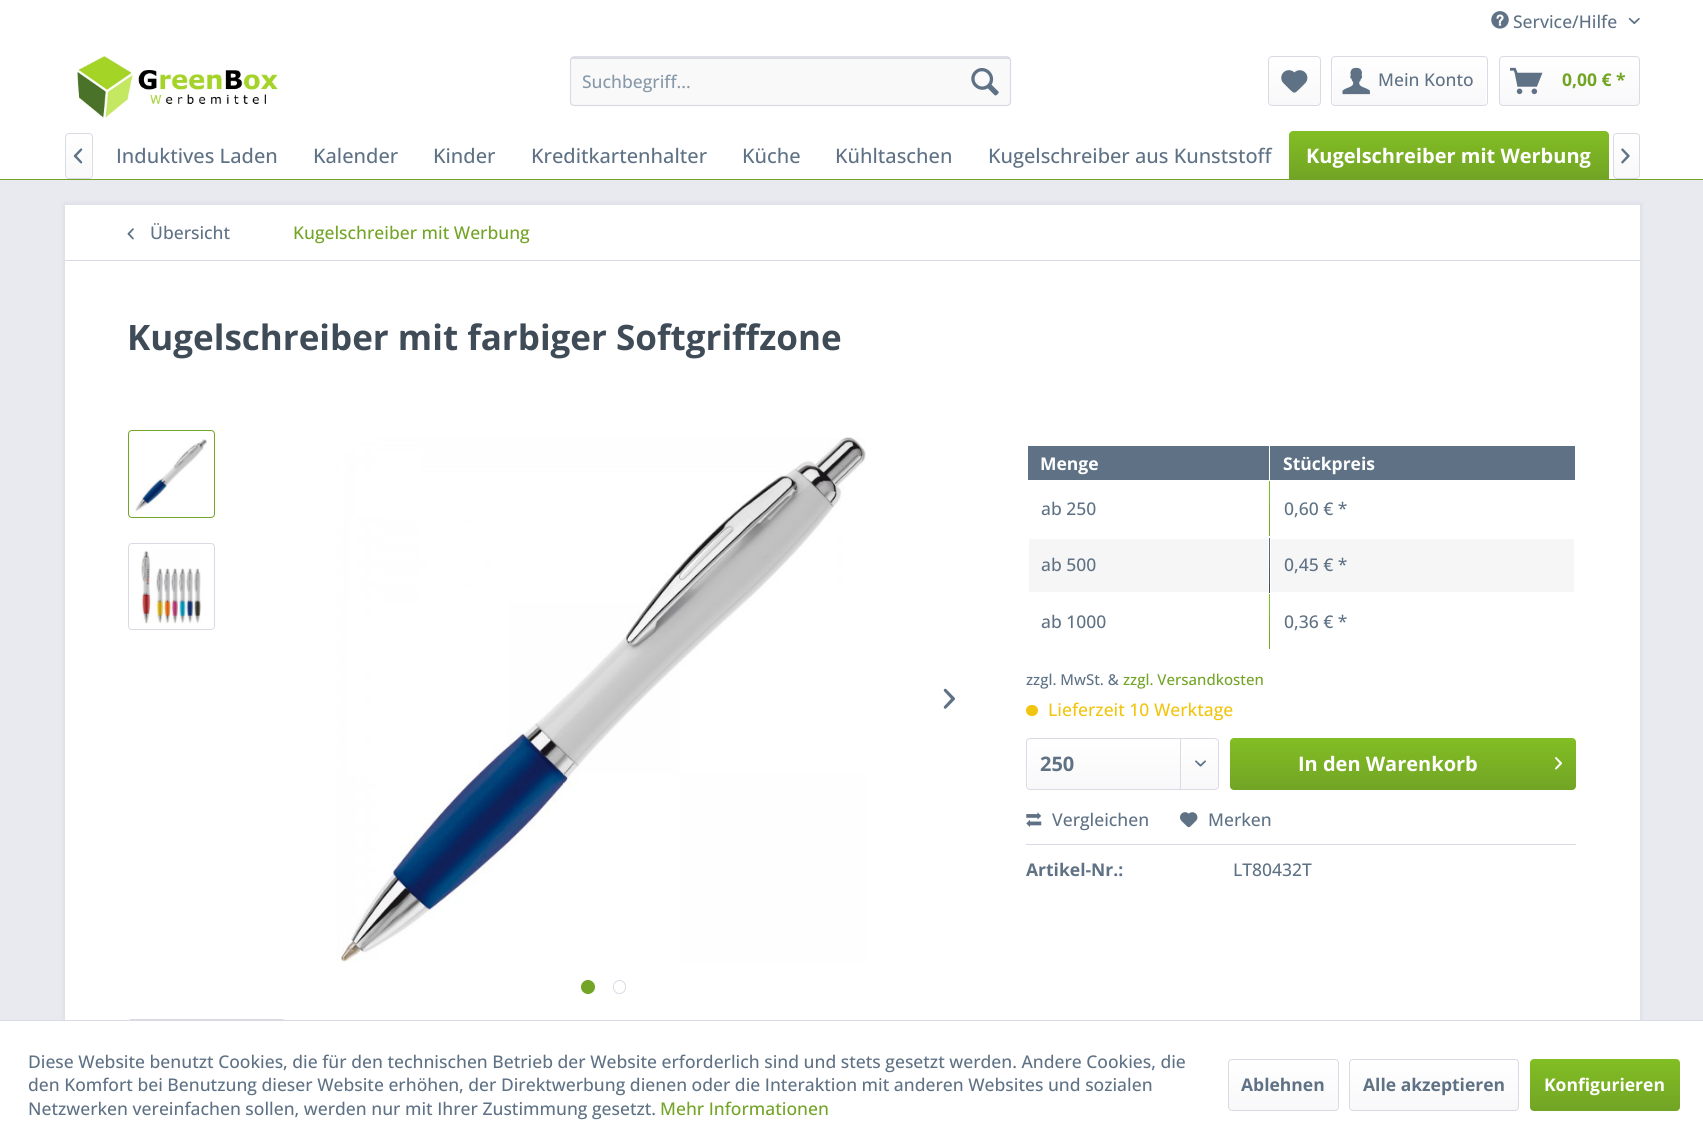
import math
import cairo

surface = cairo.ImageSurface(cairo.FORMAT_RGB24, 1703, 1147)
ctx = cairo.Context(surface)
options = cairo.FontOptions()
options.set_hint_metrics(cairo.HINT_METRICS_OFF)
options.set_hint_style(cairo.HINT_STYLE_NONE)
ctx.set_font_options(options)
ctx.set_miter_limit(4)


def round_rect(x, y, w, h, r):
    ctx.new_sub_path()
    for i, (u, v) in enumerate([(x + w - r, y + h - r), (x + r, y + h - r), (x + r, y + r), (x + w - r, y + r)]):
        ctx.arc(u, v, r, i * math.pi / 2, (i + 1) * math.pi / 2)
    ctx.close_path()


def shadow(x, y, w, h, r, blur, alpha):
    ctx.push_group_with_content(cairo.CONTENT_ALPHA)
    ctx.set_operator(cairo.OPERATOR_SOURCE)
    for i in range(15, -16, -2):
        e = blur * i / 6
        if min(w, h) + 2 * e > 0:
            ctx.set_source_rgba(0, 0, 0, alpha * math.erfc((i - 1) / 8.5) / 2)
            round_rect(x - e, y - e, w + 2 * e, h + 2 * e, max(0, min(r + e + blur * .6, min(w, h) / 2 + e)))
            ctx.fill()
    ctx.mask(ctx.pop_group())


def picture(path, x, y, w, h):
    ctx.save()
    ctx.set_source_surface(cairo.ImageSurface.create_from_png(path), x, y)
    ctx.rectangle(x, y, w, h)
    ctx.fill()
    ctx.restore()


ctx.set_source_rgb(0.914, 0.914, 0.941)
ctx.paint()
ctx.set_source_rgb(1, 1, 1)
ctx.rectangle(0, 0, 1703, 179)
ctx.fill()
picture("img1.png", 1491, 11, 18, 18)
ctx.select_font_face("Open Sans Medium")
ctx.set_font_size(17.5)
ctx.set_source_rgb(0.373, 0.447, 0.522)
ctx.move_to(1513, 28)
ctx.show_text("Service/Hilfe")
picture("img2.png", 1628, 17, 12, 8)
picture("img3.png", 77, 56, 201, 62)
ctx.set_source_rgb(0.973, 0.973, 0.98)
round_rect(570, 56, 441, 50, 4)
ctx.fill()
ctx.set_source_rgb(0.855, 0.855, 0.898)
ctx.new_path()
ctx.move_to(574, 59)
ctx.line_to(1008, 59)
ctx.curve_to(1009, 59, 1010, 60, 1010, 61)
ctx.curve_to(1010, 59, 1009, 58, 1008, 58)
ctx.line_to(574, 58)
ctx.line_to(572, 59)
ctx.line_to(571, 61)
ctx.curve_to(571, 60, 572, 59, 574, 59)
ctx.close_path()
ctx.fill()
ctx.new_path()
ctx.move_to(571.5, 58)
ctx.line_to(574, 57)
ctx.line_to(1007.5, 57)
ctx.line_to(1009.5, 58)
ctx.set_source_rgb(0.796, 0.796, 0.859)
ctx.set_line_width(1.2)
ctx.stroke()
ctx.new_path()
ctx.move_to(1009.5, 58)
ctx.line_to(1010.5, 60)
ctx.line_to(1010.5, 102.5)
ctx.line_to(1009.5, 104.5)
ctx.line_to(1007.5, 105.5)
ctx.line_to(574, 105.5)
ctx.line_to(571.5, 104.5)
ctx.line_to(570.5, 102.5)
ctx.line_to(570.5, 60)
ctx.line_to(571.5, 58)
ctx.set_source_rgb(0.855, 0.855, 0.898)
ctx.stroke()
ctx.set_source_rgb(0.529, 0.596, 0.663)
ctx.move_to(582, 88)
ctx.show_text("Suchbegriff...")
picture("img4.png", 971, 68, 28, 28)
gradient = cairo.LinearGradient(1294, 58, 1294, 105)
gradient.add_color_stop_rgba(0, 1, 1, 1, 1)
gradient.add_color_stop_rgba(1, 0.973, 0.973, 0.98, 1)
ctx.set_source(gradient)
round_rect(1269, 58, 51, 47, 2.5)
ctx.fill()
round_rect(1268.5, 56.5, 52, 49, 3.5)
ctx.set_source_rgb(0.855, 0.855, 0.898)
ctx.set_line_width(1)
ctx.stroke()
picture("img5.png", 1281, 70, 27, 23)
gradient = cairo.LinearGradient(1409, 57, 1409, 105)
gradient.add_color_stop_rgba(0, 1, 1, 1, 1)
gradient.add_color_stop_rgba(1, 0.973, 0.973, 0.98, 1)
ctx.set_source(gradient)
round_rect(1333, 58, 153, 47, 2.5)
ctx.fill()
round_rect(1331.5, 56.5, 156, 49, 3.5)
ctx.set_source_rgb(0.855, 0.855, 0.898)
ctx.stroke()
picture("img6.png", 1342, 67, 28, 28)
ctx.set_source_rgb(0.373, 0.447, 0.522)
ctx.move_to(1378, 86)
ctx.show_text("Mein Konto")
gradient = cairo.LinearGradient(1569, 57, 1569, 105)
gradient.add_color_stop_rgba(0, 1, 1, 1, 1)
gradient.add_color_stop_rgba(1, 0.973, 0.973, 0.98, 1)
ctx.set_source(gradient)
round_rect(1500, 58, 139, 47, 2.5)
ctx.fill()
round_rect(1499.5, 56.5, 140, 49, 3.5)
ctx.set_source_rgb(0.855, 0.855, 0.898)
ctx.stroke()
picture("img7.png", 1510, 67, 33, 28)
ctx.select_font_face("Open Sans", cairo.FONT_SLANT_NORMAL, cairo.FONT_WEIGHT_BOLD)
ctx.set_source_rgb(0.447, 0.643, 0.145)
ctx.move_to(1562, 86)
ctx.show_text("0,00 € *")
ctx.rectangle(0, 179, 1703, 1)
ctx.fill()
gradient = cairo.LinearGradient(79, 134, 79, 178)
gradient.add_color_stop_rgba(0, 1, 1, 1, 1)
gradient.add_color_stop_rgba(1, 0.973, 0.973, 0.98, 1)
ctx.set_source(gradient)
round_rect(66, 134, 25, 44, 2.5)
ctx.fill()
round_rect(65.5, 133.5, 27, 45, 3.5)
ctx.set_source_rgb(0.855, 0.855, 0.898)
ctx.stroke()
picture("img8.png", 73, 148, 10, 16)
ctx.select_font_face("Open Sans Medium")
ctx.set_font_size(20)
ctx.set_source_rgb(0.373, 0.447, 0.522)
ctx.move_to(116, 163)
ctx.show_text("Induktives Laden")
ctx.move_to(313, 163)
ctx.show_text("Kalender")
ctx.move_to(433, 163)
ctx.show_text("Kinder")
ctx.move_to(531, 163)
ctx.show_text("Kreditkartenhalter")
ctx.move_to(742, 163)
ctx.show_text("Küche")
ctx.move_to(835, 163)
ctx.show_text("Kühltaschen")
ctx.move_to(988, 163)
ctx.show_text("Kugelschreiber aus Kunststoff")
gradient = cairo.LinearGradient(1449, 131, 1449, 179)
gradient.add_color_stop_rgba(0, 0.51, 0.745, 0.141, 1)
gradient.add_color_stop_rgba(1, 0.447, 0.643, 0.145, 1)
ctx.set_source(gradient)
ctx.new_path()
ctx.move_to(1293, 131)
ctx.line_to(1605, 131)
ctx.curve_to(1607, 131, 1609, 133, 1609, 135)
ctx.line_to(1609, 179)
ctx.line_to(1289, 179)
ctx.line_to(1289, 135)
ctx.curve_to(1289, 133, 1291, 131, 1293, 131)
ctx.close_path()
ctx.fill()
ctx.select_font_face("Open Sans", cairo.FONT_SLANT_NORMAL, cairo.FONT_WEIGHT_BOLD)
ctx.set_source_rgb(1, 1, 1)
ctx.move_to(1306, 163)
ctx.show_text("Kugelschreiber mit Werbung")
gradient = cairo.LinearGradient(1626, 134, 1626, 178)
gradient.add_color_stop_rgba(0, 1, 1, 1, 1)
gradient.add_color_stop_rgba(1, 0.973, 0.973, 0.98, 1)
ctx.set_source(gradient)
round_rect(1614, 134, 25, 44, 2.5)
ctx.fill()
round_rect(1613.5, 133.5, 26, 45, 3.5)
ctx.set_source_rgb(0.855, 0.855, 0.898)
ctx.stroke()
picture("img9.png", 1621, 148, 9, 16)
ctx.set_source_rgb(0.855, 0.855, 0.898)
shadow(64, 204, 1577, 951, 0, 2.5, 1)
ctx.set_source_rgb(1, 1, 1)
ctx.rectangle(65, 205, 1575, 815)
ctx.fill()
ctx.set_source_rgb(0.855, 0.855, 0.898)
ctx.rectangle(65, 260, 1575, 1)
ctx.fill()
picture("img10.png", 127, 228, 7, 12)
ctx.select_font_face("Open Sans Medium")
ctx.set_font_size(17.5)
ctx.set_source_rgb(0.373, 0.447, 0.522)
ctx.move_to(150, 239)
ctx.show_text("Übersicht")
ctx.set_source_rgb(0.447, 0.643, 0.145)
ctx.move_to(293, 239)
ctx.show_text("Kugelschreiber mit Werbung")
ctx.select_font_face("Open Sans", cairo.FONT_SLANT_NORMAL, cairo.FONT_WEIGHT_BOLD)
ctx.set_font_size(35)
ctx.set_source_rgb(0.247, 0.298, 0.345)
ctx.move_to(127, 350)
ctx.show_text("Kugelschreiber mit farbiger Softgriffzone")
round_rect(128.5, 430.5, 86, 87, 3.5)
ctx.set_source_rgb(0.447, 0.643, 0.145)
ctx.stroke()
picture("img11.png", 135, 439, 72, 72)
round_rect(128.5, 543.5, 86, 86, 3.5)
ctx.set_source_rgb(0.855, 0.855, 0.898)
ctx.stroke()
picture("img12.png", 141, 550, 60, 74)
picture("img13.png", 335, 437, 531, 525)
picture("img14.png", 943, 688, 12, 21)
ctx.set_source_rgb(0.447, 0.643, 0.145)
ctx.arc(588, 987, 6.5, 0, 2 * math.pi)
ctx.fill_preserve()
ctx.stroke()
round_rect(613.5, 980.5, 12, 13, 6)
ctx.set_source_rgb(0.855, 0.855, 0.898)
ctx.stroke()
ctx.set_source_rgb(0.373, 0.447, 0.522)
ctx.rectangle(1028, 446, 241, 34)
ctx.fill()
ctx.set_font_size(17.5)
ctx.set_source_rgb(1, 1, 1)
ctx.move_to(1040, 470)
ctx.show_text("Menge")
ctx.set_source_rgb(0.373, 0.447, 0.522)
ctx.rectangle(1270, 446, 305, 34)
ctx.fill()
ctx.set_source_rgb(1, 1, 1)
ctx.move_to(1283, 470)
ctx.show_text("Stückpreis")
gradient = cairo.LinearGradient(1301, 481, 1301, 536)
gradient.add_color_stop_rgba(0, 0.51, 0.745, 0.141, 1)
gradient.add_color_stop_rgba(1, 0.447, 0.643, 0.145, 1)
ctx.set_source(gradient)
ctx.rectangle(1269, 481, 1, 55)
ctx.fill()
ctx.select_font_face("Open Sans Medium")
ctx.set_source_rgb(0.373, 0.447, 0.522)
ctx.move_to(1041, 515)
ctx.show_text("ab 250")
ctx.move_to(1284, 515)
ctx.show_text("0,60 € *")
gradient = cairo.LinearGradient(1301, 538, 1301, 593)
gradient.add_color_stop_rgba(0, 0.373, 0.447, 0.522, 1)
gradient.add_color_stop_rgba(1, 0.247, 0.298, 0.345, 1)
ctx.set_source(gradient)
ctx.rectangle(1269, 538, 1, 55)
ctx.fill()
ctx.set_source_rgb(0.961, 0.961, 0.961)
ctx.rectangle(1029, 539, 239, 53)
ctx.fill()
ctx.set_source_rgb(0.373, 0.447, 0.522)
ctx.move_to(1041, 571)
ctx.show_text("ab 500")
ctx.set_source_rgb(0.961, 0.961, 0.961)
ctx.rectangle(1271, 539, 303, 53)
ctx.fill()
ctx.set_source_rgb(0.373, 0.447, 0.522)
ctx.move_to(1284, 571)
ctx.show_text("0,45 € *")
gradient = cairo.LinearGradient(1301, 594, 1301, 649)
gradient.add_color_stop_rgba(0, 0.51, 0.745, 0.141, 1)
gradient.add_color_stop_rgba(1, 0.447, 0.643, 0.145, 1)
ctx.set_source(gradient)
ctx.rectangle(1269, 594, 1, 55)
ctx.fill()
ctx.set_source_rgb(0.373, 0.447, 0.522)
ctx.move_to(1041, 628)
ctx.show_text("ab 1000")
ctx.move_to(1284, 628)
ctx.show_text("0,36 € *")
ctx.set_font_size(15)
ctx.move_to(1026, 685)
ctx.show_text("zzgl. MwSt. &")
ctx.set_source_rgb(0.447, 0.643, 0.145)
ctx.move_to(1123, 685)
ctx.show_text("zzgl. Versandkosten")
ctx.set_source_rgb(0.945, 0.769, 0.059)
round_rect(1026, 705, 12, 11, 5.5)
ctx.fill()
ctx.set_font_size(17.5)
ctx.move_to(1048, 716)
ctx.show_text("Lieferzeit 10 Werktage")
gradient = cairo.LinearGradient(1123, 739, 1123, 789)
gradient.add_color_stop_rgba(0, 1, 1, 1, 1)
gradient.add_color_stop_rgba(1, 0.973, 0.973, 0.98, 1)
ctx.set_source(gradient)
round_rect(1028, 739, 190, 50, 2.5)
ctx.fill()
round_rect(1026.5, 738.5, 192, 51, 3.5)
ctx.set_source_rgb(0.855, 0.855, 0.898)
ctx.stroke()
ctx.select_font_face("Open Sans", cairo.FONT_SLANT_NORMAL, cairo.FONT_WEIGHT_BOLD)
ctx.set_font_size(20)
ctx.set_source_rgb(0.373, 0.447, 0.522)
ctx.move_to(1040, 771)
ctx.show_text("250")
ctx.set_source_rgb(0.855, 0.855, 0.898)
ctx.rectangle(1180, 739, 1, 50)
ctx.fill()
picture("img15.png", 1195, 760, 11, 7)
gradient = cairo.LinearGradient(1403, 738, 1403, 790)
gradient.add_color_stop_rgba(0, 0.51, 0.745, 0.141, 1)
gradient.add_color_stop_rgba(1, 0.447, 0.643, 0.145, 1)
ctx.set_source(gradient)
round_rect(1230, 738, 346, 52, 4)
ctx.fill()
ctx.set_source_rgb(1, 1, 1)
ctx.move_to(1298, 771)
ctx.show_text("In den Warenkorb")
picture("img16.png", 1555, 757, 7, 13)
ctx.set_source_rgb(0.855, 0.855, 0.898)
ctx.rectangle(1026, 844, 550, 1)
ctx.fill()
picture("img17.png", 1026, 812, 16, 15)
ctx.select_font_face("Open Sans Medium")
ctx.set_font_size(17.5)
ctx.set_source_rgb(0.373, 0.447, 0.522)
ctx.move_to(1052, 826)
ctx.show_text("Vergleichen")
picture("img18.png", 1180, 812, 18, 16)
ctx.move_to(1208, 826)
ctx.show_text("Merken")
ctx.select_font_face("Open Sans", cairo.FONT_SLANT_NORMAL, cairo.FONT_WEIGHT_BOLD)
ctx.move_to(1026, 876)
ctx.show_text("Artikel-Nr.:")
ctx.select_font_face("Open Sans Medium")
ctx.move_to(1233, 876)
ctx.show_text("LT80432T")
ctx.set_source_rgb(0.855, 0.855, 0.898)
ctx.new_path()
ctx.move_to(131, 1019)
ctx.line_to(129, 1020)
ctx.line_to(130, 1021)
ctx.line_to(131, 1020)
ctx.line_to(282, 1020)
ctx.line_to(284, 1021)
ctx.line_to(285, 1020)
ctx.line_to(282, 1019)
ctx.close_path()
ctx.fill()
ctx.set_source_rgb(1, 1, 1)
ctx.rectangle(0, 1021, 1703, 126)
ctx.fill()
ctx.set_source_rgb(0.855, 0.855, 0.898)
ctx.rectangle(0, 1020, 1703, 1)
ctx.fill()
ctx.set_source_rgb(0.373, 0.447, 0.522)
ctx.move_to(28, 1068)
ctx.show_text("Diese Website benutzt Cookies, die für den technischen Betrieb der Website erforderlich sind und stets gesetzt werden. Andere Cookies, die")
ctx.move_to(28, 1091)
ctx.show_text("den Komfort bei Benutzung dieser Website erhöhen, der Direktwerbung dienen oder die Interaktion mit anderen Websites und sozialen")
ctx.move_to(28, 1115)
ctx.show_text("Netzwerken vereinfachen sollen, werden nur mit Ihrer Zustimmung gesetzt.")
ctx.set_source_rgb(0.447, 0.643, 0.145)
ctx.move_to(660, 1115)
ctx.show_text("Mehr Informationen")
gradient = cairo.LinearGradient(1283, 1060, 1283, 1110)
gradient.add_color_stop_rgba(0, 1, 1, 1, 1)
gradient.add_color_stop_rgba(1, 0.973, 0.973, 0.98, 1)
ctx.set_source(gradient)
round_rect(1229, 1060, 109, 50, 2.5)
ctx.fill()
round_rect(1228.5, 1059.5, 110, 51, 3.5)
ctx.set_source_rgb(0.855, 0.855, 0.898)
ctx.stroke()
ctx.select_font_face("Open Sans", cairo.FONT_SLANT_NORMAL, cairo.FONT_WEIGHT_BOLD)
ctx.set_source_rgb(0.373, 0.447, 0.522)
ctx.move_to(1241, 1091)
ctx.show_text("Ablehnen")
gradient = cairo.LinearGradient(1434, 1060, 1434, 1110)
gradient.add_color_stop_rgba(0, 1, 1, 1, 1)
gradient.add_color_stop_rgba(1, 0.973, 0.973, 0.98, 1)
ctx.set_source(gradient)
round_rect(1350, 1060, 168, 50, 2.5)
ctx.fill()
round_rect(1349.5, 1059.5, 169, 51, 3.5)
ctx.set_source_rgb(0.855, 0.855, 0.898)
ctx.stroke()
ctx.set_source_rgb(0.373, 0.447, 0.522)
ctx.move_to(1363, 1091)
ctx.show_text("Alle akzeptieren")
gradient = cairo.LinearGradient(1605, 1059, 1605, 1111)
gradient.add_color_stop_rgba(0, 0.51, 0.745, 0.141, 1)
gradient.add_color_stop_rgba(1, 0.447, 0.643, 0.145, 1)
ctx.set_source(gradient)
round_rect(1530, 1059, 150, 52, 4)
ctx.fill()
ctx.set_source_rgb(1, 1, 1)
ctx.move_to(1544, 1091)
ctx.show_text("Konfigurieren")
surface.write_to_png("page.png")
